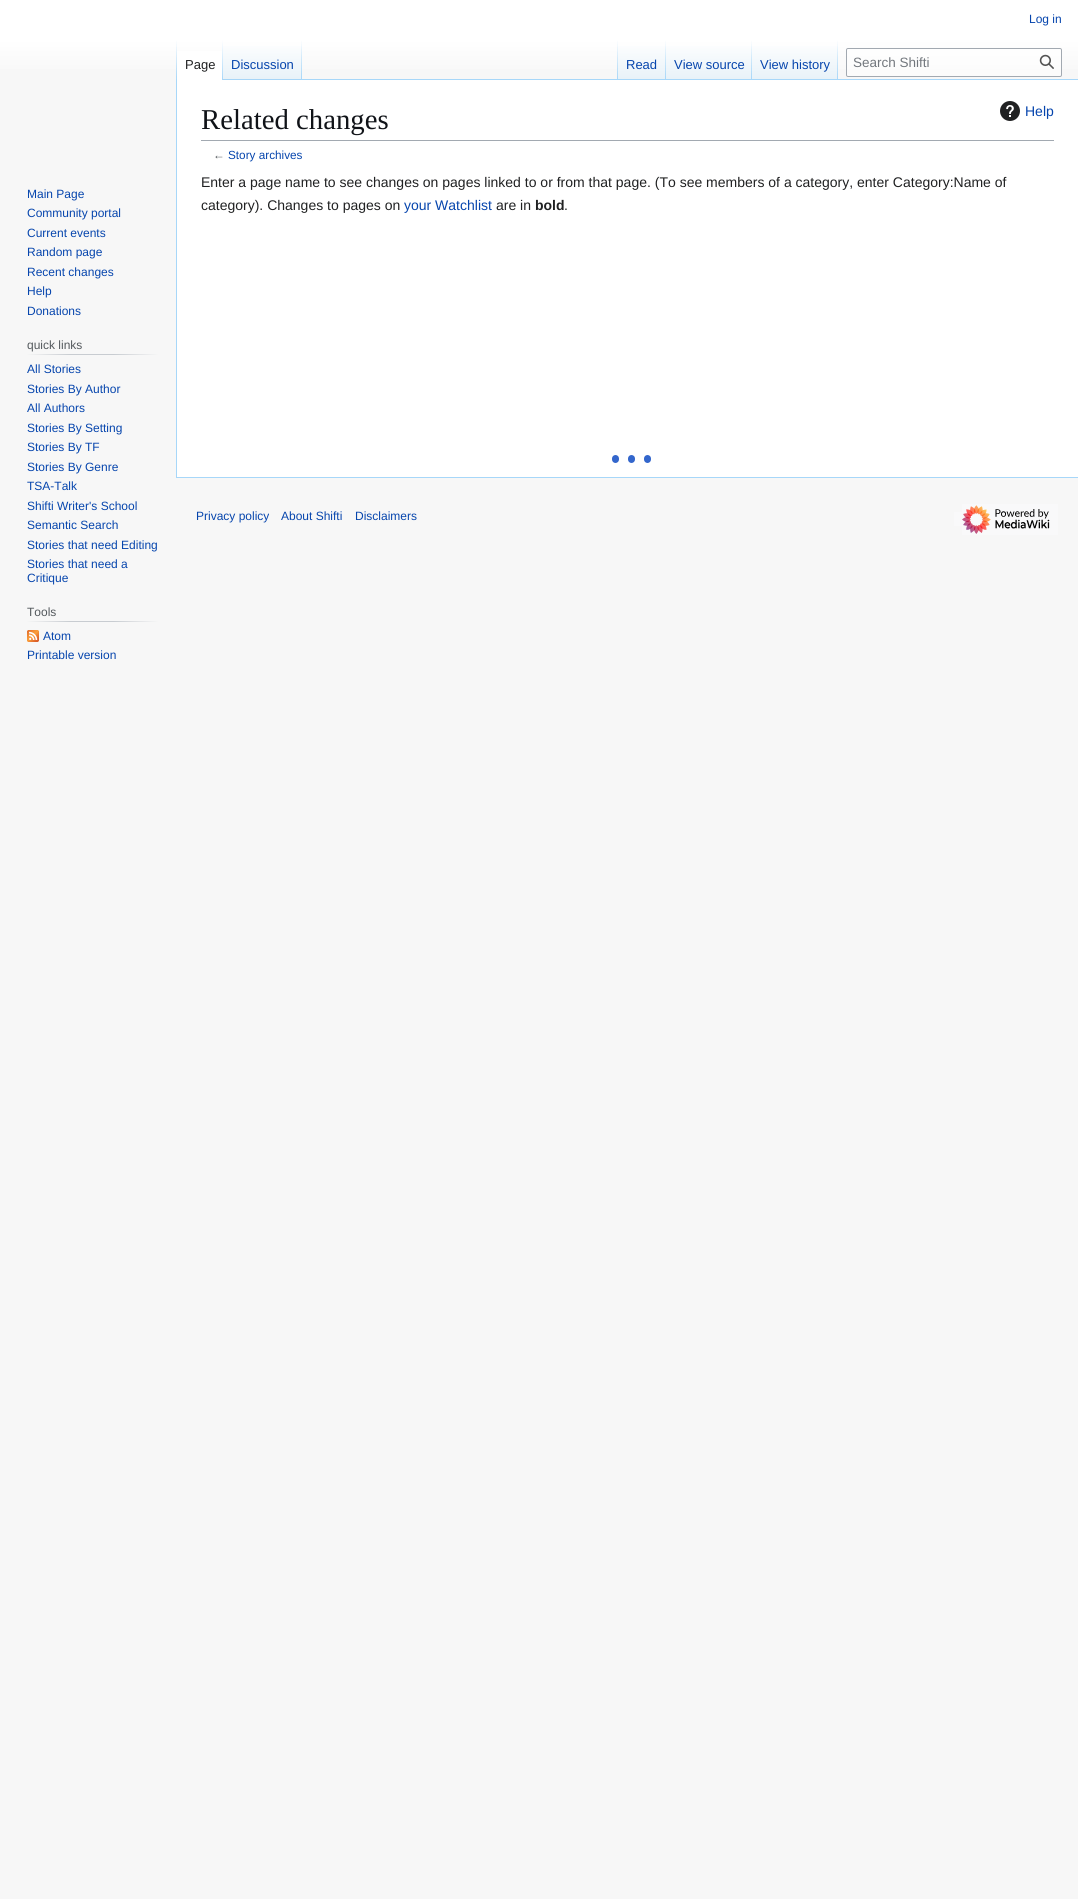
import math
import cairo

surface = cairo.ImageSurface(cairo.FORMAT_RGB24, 1078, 1899)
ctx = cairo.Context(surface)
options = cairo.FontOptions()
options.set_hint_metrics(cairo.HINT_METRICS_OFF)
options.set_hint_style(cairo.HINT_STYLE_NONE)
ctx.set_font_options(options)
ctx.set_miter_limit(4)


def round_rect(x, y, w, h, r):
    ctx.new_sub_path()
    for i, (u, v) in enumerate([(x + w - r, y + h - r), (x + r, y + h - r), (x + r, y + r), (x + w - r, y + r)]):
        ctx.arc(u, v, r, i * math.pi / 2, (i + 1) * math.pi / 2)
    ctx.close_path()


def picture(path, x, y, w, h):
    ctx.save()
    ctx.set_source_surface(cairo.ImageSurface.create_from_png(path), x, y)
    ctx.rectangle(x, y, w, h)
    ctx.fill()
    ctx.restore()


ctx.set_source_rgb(0.965, 0.965, 0.965)
ctx.paint()
gradient = cairo.LinearGradient(539, 0, 539, 80)
gradient.add_color_stop_rgba(0.5, 1, 1, 1, 1)
gradient.add_color_stop_rgba(1, 0.965, 0.965, 0.965, 1)
ctx.set_source(gradient)
ctx.rectangle(0, 0, 1078, 69)
ctx.fill()
ctx.select_font_face("Liberation Sans")
ctx.set_font_size(12)
ctx.set_source_rgb(0.024, 0.271, 0.678)
ctx.move_to(1029, 23)
ctx.show_text("Log in")
ctx.set_source_rgb(0.655, 0.843, 0.976)
ctx.rectangle(176, 477, 902, 1)
ctx.fill()
ctx.rectangle(176, 79, 1, 399)
ctx.fill()
gradient = cairo.LinearGradient(177, 40, 177, 80)
gradient.add_color_stop_rgba(0, 0.655, 0.843, 0.976, 0)
gradient.add_color_stop_rgba(1, 0.655, 0.843, 0.976, 1)
ctx.set_source(gradient)
ctx.rectangle(176, 40, 1, 40)
ctx.fill()
ctx.set_source_rgb(1, 1, 1)
ctx.rectangle(177, 51, 45, 29)
ctx.fill()
gradient = cairo.LinearGradient(223, 40, 223, 80)
gradient.add_color_stop_rgba(0, 1, 1, 1, 1)
gradient.add_color_stop_rgba(1, 0.655, 0.843, 0.976, 1)
ctx.set_source(gradient)
ctx.rectangle(222, 40, 1, 40)
ctx.fill()
ctx.set_font_size(13)
ctx.set_source_rgb(0.125, 0.129, 0.133)
ctx.move_to(185, 69)
ctx.show_text("Page")
gradient = cairo.LinearGradient(263, 80, 263, 40)
gradient.add_color_stop_rgba(0, 0.467, 0.757, 0.965, 1)
gradient.add_color_stop_rgba(0.03, 0.91, 0.949, 0.973, 1)
gradient.add_color_stop_rgba(1, 1, 1, 1, 1)
ctx.set_source(gradient)
ctx.rectangle(223, 46, 79, 34)
ctx.fill()
gradient = cairo.LinearGradient(302, 40, 302, 80)
gradient.add_color_stop_rgba(0, 0.655, 0.843, 0.976, 0)
gradient.add_color_stop_rgba(1, 0.655, 0.843, 0.976, 1)
ctx.set_source(gradient)
ctx.rectangle(301, 40, 1, 40)
ctx.fill()
ctx.set_source_rgb(0.024, 0.271, 0.678)
ctx.move_to(231, 69)
ctx.show_text("Discussion")
ctx.set_source_rgb(0.655, 0.843, 0.976)
ctx.rectangle(302, 79, 776, 1)
ctx.fill()
gradient = cairo.LinearGradient(618, 40, 618, 80)
gradient.add_color_stop_rgba(0, 0.655, 0.843, 0.976, 0)
gradient.add_color_stop_rgba(1, 0.655, 0.843, 0.976, 1)
ctx.set_source(gradient)
ctx.rectangle(617, 40, 1, 40)
ctx.fill()
gradient = cairo.LinearGradient(642, 80, 642, 40)
gradient.add_color_stop_rgba(0, 0.467, 0.757, 0.965, 1)
gradient.add_color_stop_rgba(0.03, 0.91, 0.949, 0.973, 1)
gradient.add_color_stop_rgba(1, 1, 1, 1, 1)
ctx.set_source(gradient)
ctx.rectangle(618, 46, 48, 33)
ctx.fill()
gradient = cairo.LinearGradient(666, 40, 666, 80)
gradient.add_color_stop_rgba(0, 0.655, 0.843, 0.976, 0)
gradient.add_color_stop_rgba(1, 0.655, 0.843, 0.976, 1)
ctx.set_source(gradient)
ctx.rectangle(665, 40, 1, 40)
ctx.fill()
ctx.set_source_rgb(0.024, 0.271, 0.678)
ctx.move_to(626, 69)
ctx.show_text("Read")
gradient = cairo.LinearGradient(709, 80, 709, 40)
gradient.add_color_stop_rgba(0, 0.467, 0.757, 0.965, 1)
gradient.add_color_stop_rgba(0.03, 0.91, 0.949, 0.973, 1)
gradient.add_color_stop_rgba(1, 1, 1, 1, 1)
ctx.set_source(gradient)
ctx.rectangle(666, 46, 86, 33)
ctx.fill()
gradient = cairo.LinearGradient(752, 40, 752, 80)
gradient.add_color_stop_rgba(0, 0.655, 0.843, 0.976, 0)
gradient.add_color_stop_rgba(1, 0.655, 0.843, 0.976, 1)
ctx.set_source(gradient)
ctx.rectangle(751, 40, 1, 40)
ctx.fill()
ctx.set_source_rgb(0.024, 0.271, 0.678)
ctx.move_to(674, 69)
ctx.show_text("View source")
gradient = cairo.LinearGradient(795, 80, 795, 40)
gradient.add_color_stop_rgba(0, 0.467, 0.757, 0.965, 1)
gradient.add_color_stop_rgba(0.03, 0.91, 0.949, 0.973, 1)
gradient.add_color_stop_rgba(1, 1, 1, 1, 1)
ctx.set_source(gradient)
ctx.rectangle(752, 46, 86, 33)
ctx.fill()
gradient = cairo.LinearGradient(838, 40, 838, 80)
gradient.add_color_stop_rgba(0, 0.655, 0.843, 0.976, 0)
gradient.add_color_stop_rgba(1, 0.655, 0.843, 0.976, 1)
ctx.set_source(gradient)
ctx.rectangle(837, 40, 1, 40)
ctx.fill()
ctx.set_source_rgb(0.024, 0.271, 0.678)
ctx.move_to(760, 69)
ctx.show_text("View history")
ctx.set_source_rgba(1, 1, 1, 0.5)
round_rect(846.5, 48.5, 215, 28, 1.5)
ctx.fill_preserve()
ctx.set_source_rgb(0.635, 0.663, 0.694)
ctx.set_line_width(1)
ctx.stroke()
ctx.set_font_size(13.5)
ctx.set_source_rgb(0.447, 0.467, 0.49)
ctx.move_to(853, 67)
ctx.show_text("Search Shifti")
picture("img1.png", 1039, 54, 15, 15)
ctx.set_font_size(12)
ctx.set_source_rgb(0.024, 0.271, 0.678)
ctx.move_to(27, 198)
ctx.show_text("Main Page")
ctx.move_to(27, 217)
ctx.show_text("Community portal")
ctx.move_to(27, 237)
ctx.show_text("Current events")
ctx.move_to(27, 256)
ctx.show_text("Random page")
ctx.move_to(27, 276)
ctx.show_text("Recent changes")
ctx.move_to(27, 295)
ctx.show_text("Help")
ctx.move_to(27, 315)
ctx.show_text("Donations")
gradient = cairo.LinearGradient(27, 355, 158, 355)
gradient.add_color_stop_rgba(0, 0.965, 0.965, 0.965, 1)
gradient.add_color_stop_rgba(0.33, 0.784, 0.8, 0.82, 1)
gradient.add_color_stop_rgba(0.66, 0.784, 0.8, 0.82, 1)
gradient.add_color_stop_rgba(1, 0.965, 0.965, 0.965, 1)
ctx.set_source(gradient)
ctx.rectangle(27, 354, 131, 1)
ctx.fill()
ctx.set_source_rgb(0.329, 0.349, 0.365)
ctx.move_to(27, 349)
ctx.show_text("quick links")
ctx.set_source_rgb(0.024, 0.271, 0.678)
ctx.move_to(27, 373)
ctx.show_text("All Stories")
ctx.move_to(27, 393)
ctx.show_text("Stories By Author")
ctx.move_to(27, 412)
ctx.show_text("All Authors")
ctx.move_to(27, 432)
ctx.show_text("Stories By Setting")
ctx.move_to(27, 451)
ctx.show_text("Stories By TF")
ctx.move_to(27, 471)
ctx.show_text("Stories By Genre")
ctx.move_to(27, 490)
ctx.show_text("TSA-Talk")
ctx.move_to(27, 510)
ctx.show_text("Shifti Writer's School")
ctx.move_to(27, 529)
ctx.show_text("Semantic Search")
ctx.move_to(27, 549)
ctx.show_text("Stories that need Editing")
ctx.move_to(27, 568)
ctx.show_text("Stories that need a")
ctx.move_to(27, 582)
ctx.show_text("Critique")
gradient = cairo.LinearGradient(27, 622, 158, 622)
gradient.add_color_stop_rgba(0, 0.965, 0.965, 0.965, 1)
gradient.add_color_stop_rgba(0.33, 0.784, 0.8, 0.82, 1)
gradient.add_color_stop_rgba(0.66, 0.784, 0.8, 0.82, 1)
gradient.add_color_stop_rgba(1, 0.965, 0.965, 0.965, 1)
ctx.set_source(gradient)
ctx.rectangle(27, 621, 131, 1)
ctx.fill()
ctx.set_source_rgb(0.329, 0.349, 0.365)
ctx.move_to(27, 616)
ctx.show_text("Tools")
picture("img2.png", 27, 630, 12, 12)
ctx.set_source_rgb(0.024, 0.271, 0.678)
ctx.move_to(43, 640)
ctx.show_text("Atom")
ctx.move_to(27, 659)
ctx.show_text("Printable version")
ctx.set_source_rgb(1, 1, 1)
ctx.rectangle(177, 80, 901, 397)
ctx.fill()
ctx.set_source_rgb(0.635, 0.663, 0.694)
ctx.rectangle(201, 140, 853, 1)
ctx.fill()
ctx.select_font_face("Liberation Serif")
ctx.set_font_size(28.75)
ctx.set_source_rgb(0.063, 0.078, 0.094)
ctx.move_to(201, 129)
ctx.show_text("Related changes")
picture("img3.png", 1000, 101, 20, 20)
ctx.select_font_face("Liberation Sans")
ctx.set_font_size(14)
ctx.set_source_rgb(0.024, 0.271, 0.678)
ctx.move_to(1025, 116)
ctx.show_text("Help")
ctx.set_font_size(11.75)
ctx.set_source_rgb(0.329, 0.349, 0.365)
ctx.move_to(213, 159)
ctx.show_text("←")
ctx.set_source_rgb(0.024, 0.271, 0.678)
ctx.move_to(228, 159)
ctx.show_text("Story archives")
ctx.set_font_size(14)
ctx.set_source_rgb(0.125, 0.129, 0.133)
ctx.move_to(201, 187)
ctx.show_text("Enter a page name to see changes on pages linked to or from that page. (To see members of a category, enter Category:Name of")
ctx.move_to(201, 210)
ctx.show_text("category). Changes to pages on")
ctx.set_source_rgb(0.024, 0.271, 0.678)
ctx.move_to(404, 210)
ctx.show_text("your Watchlist")
ctx.set_source_rgb(0.125, 0.129, 0.133)
ctx.move_to(496, 210)
ctx.show_text("are in")
ctx.select_font_face("Liberation Sans", cairo.FONT_SLANT_NORMAL, cairo.FONT_WEIGHT_BOLD)
ctx.move_to(535, 210)
ctx.show_text("bold")
ctx.select_font_face("Liberation Sans")
ctx.move_to(564, 210)
ctx.show_text(".")
ctx.set_source_rgb(0.2, 0.4, 0.8)
round_rect(612, 455, 7, 8, 3.5)
ctx.fill()
round_rect(628, 455, 7, 8, 3.5)
ctx.fill()
round_rect(644, 455, 7, 8, 3.5)
ctx.fill()
ctx.set_font_size(12)
ctx.set_source_rgb(0.024, 0.271, 0.678)
ctx.move_to(196, 520)
ctx.show_text("Privacy policy")
ctx.move_to(281, 520)
ctx.show_text("About Shifti")
ctx.move_to(355, 520)
ctx.show_text("Disclaimers")
ctx.set_source_rgb(0.973, 0.976, 0.98)
ctx.rectangle(962, 504, 96, 31)
ctx.fill()
ctx.rectangle(954, 512, 8, 14)
ctx.fill()
picture("img4.png", 962, 505, 88, 29)
surface.write_to_png("page.png")
